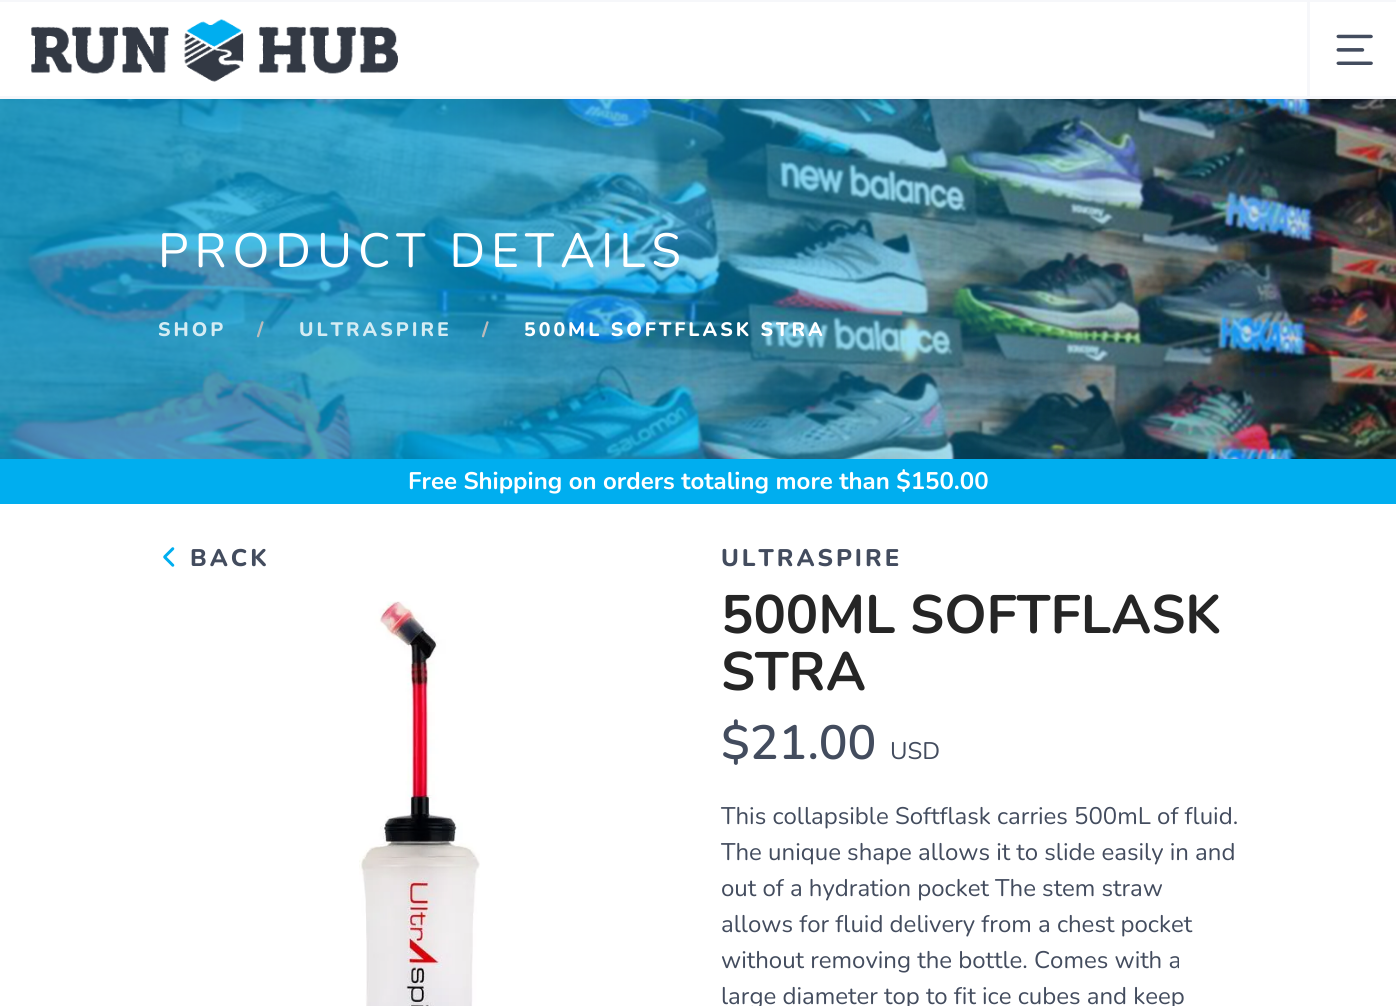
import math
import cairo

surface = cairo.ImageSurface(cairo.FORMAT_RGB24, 1396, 1006)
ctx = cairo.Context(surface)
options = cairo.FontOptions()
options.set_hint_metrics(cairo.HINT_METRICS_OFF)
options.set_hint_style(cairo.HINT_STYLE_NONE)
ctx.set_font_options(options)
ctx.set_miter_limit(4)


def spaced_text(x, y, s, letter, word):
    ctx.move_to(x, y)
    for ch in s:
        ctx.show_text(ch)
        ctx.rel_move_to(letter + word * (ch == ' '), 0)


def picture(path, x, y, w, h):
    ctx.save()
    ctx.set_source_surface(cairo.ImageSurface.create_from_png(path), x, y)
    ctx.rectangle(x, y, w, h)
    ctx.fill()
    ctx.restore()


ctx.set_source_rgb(1, 1, 1)
ctx.paint()
ctx.set_source_rgb(0.961, 0.965, 0.98)
ctx.rectangle(0, 0, 1396, 2)
ctx.fill()
ctx.rectangle(0, 96, 1396, 3)
ctx.fill()
picture("img1.png", 31, 19, 367, 63)
ctx.rectangle(1307, 2, 3, 94)
ctx.fill()
picture("img2.png", 1336, 34, 37, 31)
picture("img3.png", 0, 99, 1396, 360)
ctx.select_font_face("Nunito")
ctx.set_font_size(48)
ctx.set_source_rgb(1, 1, 1)
spaced_text(158, 267, "PRODUCT DETAILS", 6, 0)
ctx.select_font_face("Nunito ExtraBold")
ctx.set_font_size(19.5)
ctx.set_source_rgb(0.831, 0.922, 0.953)
spaced_text(158, 336, "SHOP", 3, 0)
ctx.set_source_rgb(0.733, 0.733, 0.733)
spaced_text(257, 336, "/", 3, 0)
ctx.set_source_rgb(0.831, 0.922, 0.953)
spaced_text(299, 336, "ULTRASPIRE", 3, 0)
ctx.set_source_rgb(0.733, 0.733, 0.733)
spaced_text(482, 336, "/", 3, 0)
ctx.set_source_rgb(1, 1, 1)
spaced_text(524, 336, "500ML SOFTFLASK STRA", 3, 0)
ctx.set_source_rgb(0, 0.682, 0.937)
ctx.rectangle(0, 459, 1396, 45)
ctx.fill()
ctx.select_font_face("Nunito", cairo.FONT_SLANT_NORMAL, cairo.FONT_WEIGHT_BOLD)
ctx.set_font_size(24)
ctx.set_source_rgb(1, 1, 1)
ctx.move_to(408, 489)
ctx.show_text("Free Shipping on orders totaling more than $150.00")
picture("img4.png", 163, 547, 12, 20)
ctx.select_font_face("Nunito ExtraBold")
ctx.set_source_rgb(0.263, 0.298, 0.369)
spaced_text(190, 566, "BACK", 3, 0)
picture("img5.png", 359, 601, 121, 405)
spaced_text(721, 566, "ULTRASPIRE", 3, 0)
ctx.select_font_face("Nunito", cairo.FONT_SLANT_NORMAL, cairo.FONT_WEIGHT_BOLD)
ctx.set_font_size(54)
ctx.set_source_rgb(0.145, 0.145, 0.145)
ctx.move_to(721, 633)
ctx.show_text("500ML SOFTFLASK")
ctx.move_to(721, 690)
ctx.show_text("STRA")
ctx.select_font_face("Nunito SemiBold")
ctx.set_font_size(48)
ctx.set_source_rgb(0.263, 0.298, 0.369)
ctx.move_to(721, 759)
ctx.show_text("$21.00")
ctx.select_font_face("Nunito")
ctx.set_font_size(24)
ctx.move_to(890, 759)
ctx.show_text("USD")
ctx.move_to(721, 824)
ctx.show_text("This collapsible Softflask carries 500mL of fluid.")
ctx.move_to(721, 860)
ctx.show_text("The unique shape allows it to slide easily in and")
ctx.move_to(721, 896)
ctx.show_text("out of a hydration pocket The stem straw")
ctx.move_to(721, 932)
ctx.show_text("allows for fluid delivery from a chest pocket")
ctx.move_to(721, 968)
ctx.show_text("without removing the bottle. Comes with a")
ctx.move_to(721, 1004)
ctx.show_text("large diameter top to fit ice cubes and keep")
surface.write_to_png("page.png")
